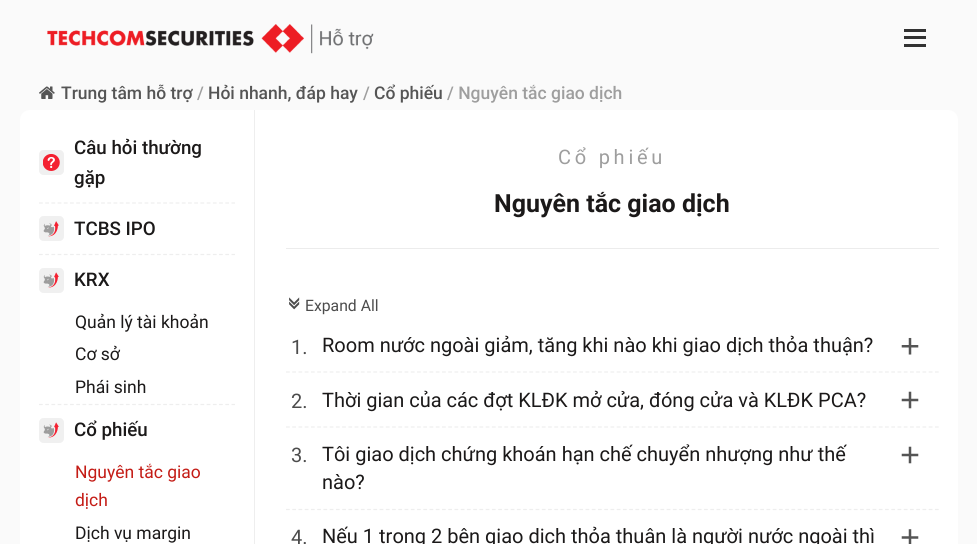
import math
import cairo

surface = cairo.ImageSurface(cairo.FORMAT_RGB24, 977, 544)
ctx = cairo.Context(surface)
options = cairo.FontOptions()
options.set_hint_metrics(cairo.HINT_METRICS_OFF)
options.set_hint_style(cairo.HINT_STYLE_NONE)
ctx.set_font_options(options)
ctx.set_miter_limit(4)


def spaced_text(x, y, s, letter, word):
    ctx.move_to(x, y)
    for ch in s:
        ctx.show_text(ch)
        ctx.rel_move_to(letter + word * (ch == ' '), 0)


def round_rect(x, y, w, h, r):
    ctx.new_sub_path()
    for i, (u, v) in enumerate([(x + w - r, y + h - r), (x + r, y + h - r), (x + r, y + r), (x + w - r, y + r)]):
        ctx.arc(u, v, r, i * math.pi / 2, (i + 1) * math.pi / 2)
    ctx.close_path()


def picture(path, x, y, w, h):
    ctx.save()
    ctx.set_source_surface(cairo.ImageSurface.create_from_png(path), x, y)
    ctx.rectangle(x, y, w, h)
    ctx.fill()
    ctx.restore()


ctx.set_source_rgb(0.98, 0.98, 0.98)
ctx.paint()
picture("img1.png", 47, 24, 327, 30)
ctx.set_source_rgb(0.196, 0.196, 0.196)
ctx.rectangle(904, 36, 22, 3)
ctx.fill()
ctx.rectangle(904, 29, 22, 3)
ctx.fill()
ctx.rectangle(904, 44, 22, 3)
ctx.fill()
picture("img2.png", 39, 86, 16, 13)
ctx.select_font_face("Roboto Medium")
ctx.set_font_size(17.5)
ctx.set_source_rgb(0.333, 0.333, 0.333)
ctx.move_to(61, 99)
ctx.show_text("Trung tâm hỗ trợ")
ctx.set_source_rgb(0.62, 0.62, 0.62)
ctx.move_to(197, 99)
ctx.show_text("/")
ctx.set_source_rgb(0.333, 0.333, 0.333)
ctx.move_to(208, 99)
ctx.show_text("Hỏi nhanh, đáp hay")
ctx.set_source_rgb(0.62, 0.62, 0.62)
ctx.move_to(363, 99)
ctx.show_text("/")
ctx.set_source_rgb(0.333, 0.333, 0.333)
ctx.move_to(374, 99)
ctx.show_text("Cổ phiếu")
ctx.set_source_rgb(0.62, 0.62, 0.62)
ctx.move_to(447, 99)
ctx.show_text("/ Nguyên tắc giao dịch")
ctx.set_source_rgb(1, 1, 1)
round_rect(20, 110, 938, 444, 10)
ctx.fill()
ctx.set_source_rgb(0.933, 0.933, 0.933)
ctx.rectangle(254, 110, 1, 434)
ctx.fill()
ctx.new_path()
ctx.move_to(39, 203)
ctx.line_to(235, 203)
ctx.set_line_width(1.2)
ctx.set_dash([3.75, 2.46])
ctx.stroke()
ctx.set_font_size(18.75)
ctx.set_source_rgb(0.106, 0.098, 0.098)
ctx.move_to(74, 154)
ctx.show_text("Câu hỏi thường")
ctx.set_source_rgb(0.941, 0.941, 0.941)
round_rect(39, 150, 25, 25, 5)
ctx.fill()
picture("img3.png", 43, 154, 17, 17)
round_rect(41, 152, 21, 21, 3)
ctx.set_line_width(4)
ctx.set_dash([])
ctx.stroke()
ctx.set_source_rgb(0.106, 0.098, 0.098)
ctx.move_to(74, 184)
ctx.show_text("gặp")
ctx.new_path()
ctx.move_to(39, 254.5)
ctx.line_to(235, 254.5)
ctx.set_source_rgb(0.933, 0.933, 0.933)
ctx.set_line_width(1.2)
ctx.set_dash([3.75, 2.46])
ctx.stroke()
ctx.set_source_rgb(0.941, 0.941, 0.941)
round_rect(39, 216, 25, 25, 5)
ctx.fill()
picture("img4.png", 43, 221, 16, 16)
round_rect(41, 218, 21, 21, 3)
ctx.set_line_width(4)
ctx.set_dash([])
ctx.stroke()
ctx.set_source_rgb(0.106, 0.098, 0.098)
ctx.move_to(74, 235)
ctx.show_text("TCBS IPO")
ctx.new_path()
ctx.move_to(39, 404.5)
ctx.line_to(235, 404.5)
ctx.set_source_rgb(0.933, 0.933, 0.933)
ctx.set_line_width(1.2)
ctx.set_dash([3.75, 2.46])
ctx.stroke()
ctx.set_source_rgb(0.941, 0.941, 0.941)
round_rect(39, 268, 25, 25, 5)
ctx.fill()
picture("img5.png", 43, 272, 16, 16)
round_rect(41, 270, 21, 21, 3)
ctx.set_line_width(4)
ctx.set_dash([])
ctx.stroke()
ctx.set_source_rgb(0.106, 0.098, 0.098)
ctx.move_to(74, 286)
ctx.show_text("KRX")
ctx.select_font_face("Roboto")
ctx.set_font_size(17.5)
ctx.move_to(75, 328)
ctx.show_text("Quản lý tài khoản")
ctx.move_to(75, 360)
ctx.show_text("Cơ sở")
ctx.move_to(75, 393)
ctx.show_text("Phái sinh")
ctx.set_source_rgb(0.941, 0.941, 0.941)
round_rect(39, 418, 25, 25, 5)
ctx.fill()
picture("img5.png", 43, 422, 16, 16)
round_rect(41, 420, 21, 21, 3)
ctx.stroke()
ctx.select_font_face("Roboto Medium")
ctx.set_font_size(18.75)
ctx.set_source_rgb(0.106, 0.098, 0.098)
ctx.move_to(74, 436)
ctx.show_text("Cổ phiếu")
ctx.select_font_face("Roboto")
ctx.set_font_size(17.5)
ctx.set_source_rgb(0.769, 0.11, 0.086)
ctx.move_to(75, 478)
ctx.show_text("Nguyên tắc giao")
ctx.move_to(75, 506)
ctx.show_text("dịch")
ctx.set_source_rgb(0.106, 0.098, 0.098)
ctx.move_to(75, 539)
ctx.show_text("Dịch vụ margin")
ctx.set_font_size(20)
ctx.set_source_rgb(0.62, 0.62, 0.62)
spaced_text(558, 164, "Cổ phiếu", 3.75, 0)
ctx.select_font_face("Roboto", cairo.FONT_SLANT_NORMAL, cairo.FONT_WEIGHT_BOLD)
ctx.set_font_size(25)
ctx.set_source_rgb(0.106, 0.098, 0.098)
ctx.move_to(494, 212)
ctx.show_text("Nguyên tắc giao dịch")
ctx.set_source_rgb(0.922, 0.922, 0.922)
ctx.rectangle(286, 248, 653, 1)
ctx.fill()
picture("img6.png", 289, 297, 11, 13)
ctx.select_font_face("Roboto")
ctx.set_font_size(15.75)
ctx.set_source_rgb(0.298, 0.298, 0.298)
ctx.move_to(305, 311)
ctx.show_text("Expand All")
ctx.new_path()
ctx.move_to(286, 372)
ctx.line_to(939, 372)
ctx.set_source_rgb(0.933, 0.933, 0.933)
ctx.set_line_width(1.2)
ctx.set_dash([3.75, 2.49])
ctx.stroke()
ctx.set_font_size(20)
ctx.set_source_rgb(0.298, 0.298, 0.298)
ctx.move_to(291, 354)
ctx.show_text("1.")
ctx.set_source_rgb(0.106, 0.098, 0.098)
ctx.move_to(322, 352)
ctx.show_text("Room nước ngoài giảm, tăng khi nào khi giao dịch thỏa thuận?")
picture("img7.png", 901, 337, 18, 18)
ctx.new_path()
ctx.move_to(286, 427)
ctx.line_to(939, 427)
ctx.set_source_rgb(0.933, 0.933, 0.933)
ctx.stroke()
ctx.set_source_rgb(0.298, 0.298, 0.298)
ctx.move_to(291, 408)
ctx.show_text("2.")
ctx.set_source_rgb(0.106, 0.098, 0.098)
ctx.move_to(322, 407)
ctx.show_text("Thời gian của các đợt KLĐK mở cửa, đóng cửa và KLĐK PCA?")
picture("img8.png", 901, 391, 18, 18)
ctx.new_path()
ctx.move_to(286, 509.5)
ctx.line_to(939, 509.5)
ctx.set_source_rgb(0.933, 0.933, 0.933)
ctx.stroke()
ctx.set_source_rgb(0.298, 0.298, 0.298)
ctx.move_to(291, 462)
ctx.show_text("3.")
ctx.set_source_rgb(0.106, 0.098, 0.098)
ctx.move_to(322, 461)
ctx.show_text("Tôi giao dịch chứng khoán hạn chế chuyển nhượng như thế")
ctx.move_to(322, 489)
ctx.show_text("nào?")
picture("img8.png", 901, 446, 18, 18)
ctx.set_source_rgb(0.298, 0.298, 0.298)
ctx.move_to(291, 544)
ctx.show_text("4.")
ctx.set_source_rgb(0.106, 0.098, 0.098)
ctx.move_to(322, 543)
ctx.show_text("Nếu 1 trong 2 bên giao dịch thỏa thuận là người nước ngoài thì")
picture("img9.png", 901, 529, 18, 15)
surface.write_to_png("page.png")
